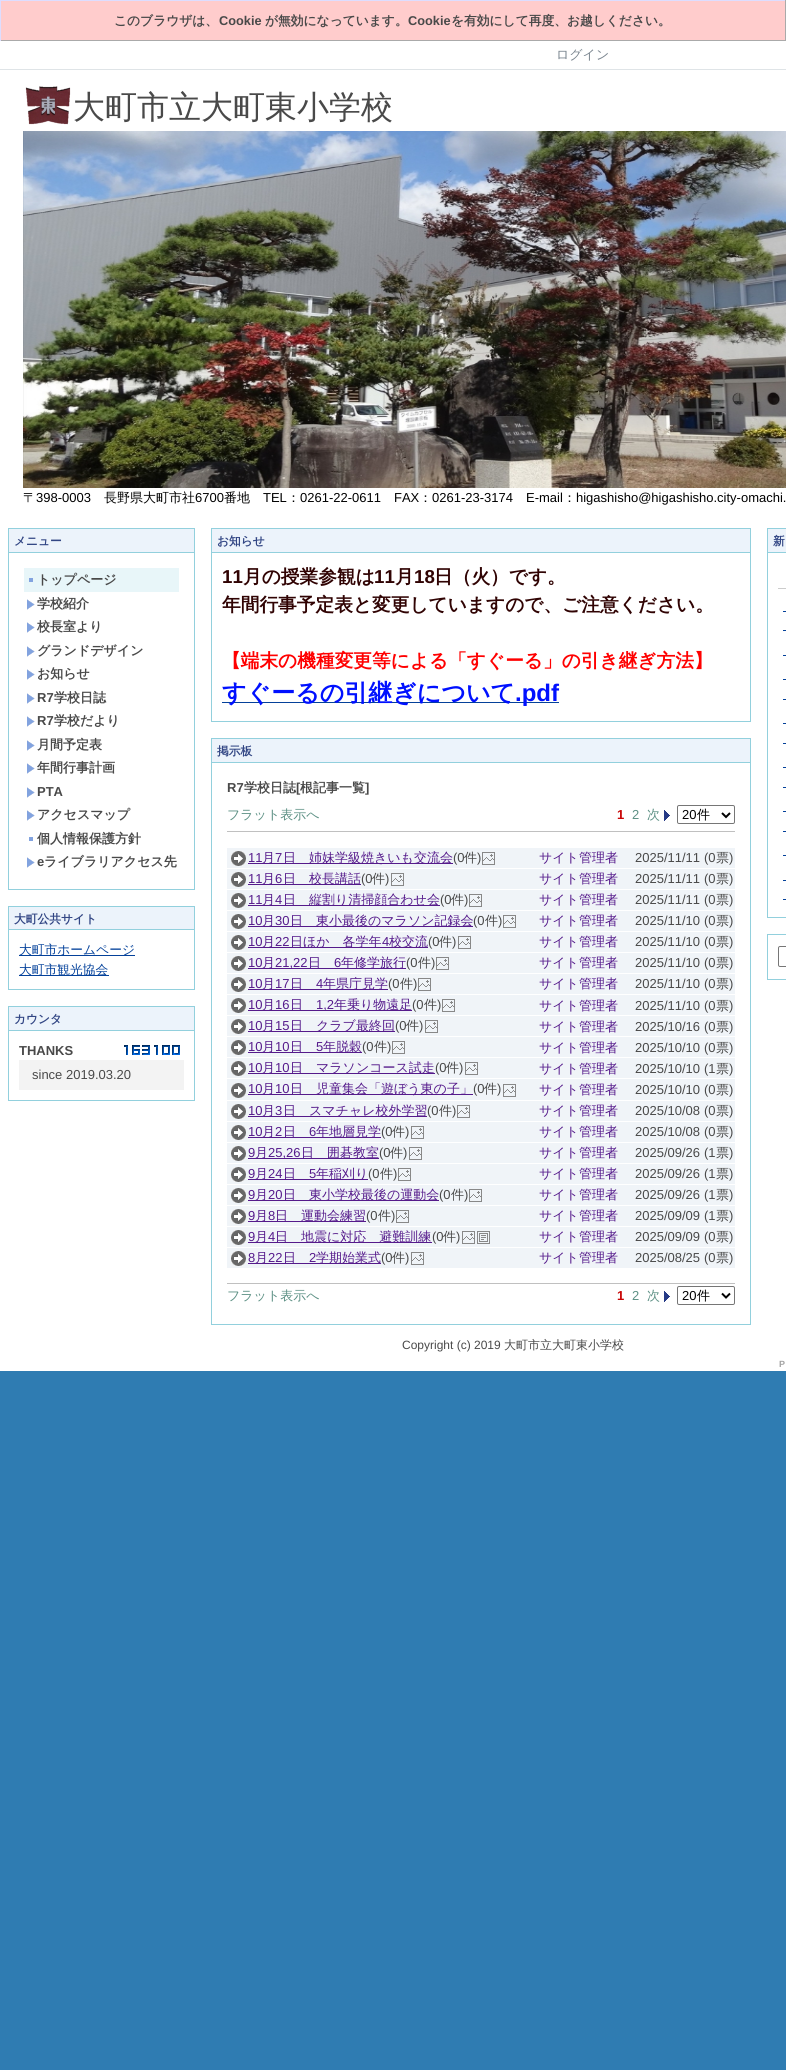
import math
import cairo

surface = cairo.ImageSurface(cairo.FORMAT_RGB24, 786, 2070)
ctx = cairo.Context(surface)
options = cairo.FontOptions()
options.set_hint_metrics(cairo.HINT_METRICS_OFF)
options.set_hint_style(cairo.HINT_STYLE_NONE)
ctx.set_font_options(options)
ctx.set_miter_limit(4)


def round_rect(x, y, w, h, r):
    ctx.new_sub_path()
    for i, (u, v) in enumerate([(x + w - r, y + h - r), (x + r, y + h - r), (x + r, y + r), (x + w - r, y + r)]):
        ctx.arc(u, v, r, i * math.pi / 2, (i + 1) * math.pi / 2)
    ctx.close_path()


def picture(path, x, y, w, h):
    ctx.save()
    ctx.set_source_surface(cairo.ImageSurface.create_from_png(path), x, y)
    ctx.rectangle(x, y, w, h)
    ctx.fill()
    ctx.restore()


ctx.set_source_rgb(0.184, 0.486, 0.698)
ctx.paint()
ctx.set_source_rgb(1, 0.8, 0.8)
ctx.rectangle(1, 1, 784, 39)
ctx.fill()
ctx.set_source_rgb(0.867, 0.867, 1)
ctx.rectangle(0, 0, 786, 1)
ctx.fill()
ctx.set_source_rgb(0.667, 0.667, 0.667)
ctx.rectangle(785, 0, 1, 41)
ctx.fill()
ctx.rectangle(0, 40, 786, 1)
ctx.fill()
ctx.set_source_rgb(0.867, 0.867, 1)
ctx.rectangle(0, 0, 1, 41)
ctx.fill()
ctx.select_font_face("WenQuanYi Zen Hei", cairo.FONT_SLANT_NORMAL, cairo.FONT_WEIGHT_BOLD)
ctx.set_font_size(12.75)
ctx.set_source_rgb(0.286, 0.286, 0.286)
ctx.move_to(114, 25)
ctx.show_text("このブラウザは、")
ctx.select_font_face("Liberation Sans", cairo.FONT_SLANT_NORMAL, cairo.FONT_WEIGHT_BOLD)
ctx.move_to(219, 25)
ctx.show_text("Cookie")
ctx.select_font_face("WenQuanYi Zen Hei", cairo.FONT_SLANT_NORMAL, cairo.FONT_WEIGHT_BOLD)
ctx.move_to(265, 25)
ctx.show_text("が無効になっています。")
ctx.select_font_face("Liberation Sans", cairo.FONT_SLANT_NORMAL, cairo.FONT_WEIGHT_BOLD)
ctx.move_to(408, 25)
ctx.show_text("Cookie")
ctx.select_font_face("WenQuanYi Zen Hei", cairo.FONT_SLANT_NORMAL, cairo.FONT_WEIGHT_BOLD)
ctx.move_to(451, 25)
ctx.show_text("を有効にして再度、お越しください。")
ctx.set_source_rgb(1, 1, 1)
ctx.rectangle(0, 41, 786, 28)
ctx.fill()
ctx.set_source_rgb(0.875, 0.894, 0.906)
ctx.rectangle(0, 69, 786, 1)
ctx.fill()
ctx.select_font_face("WenQuanYi Zen Hei Medium")
ctx.set_font_size(13)
ctx.set_source_rgb(0.478, 0.522, 0.561)
ctx.move_to(556, 59)
ctx.show_text("ログイン")
ctx.set_source_rgb(1, 1, 1)
ctx.rectangle(0, 70, 786, 450)
ctx.fill()
picture("img1.png", 25, 86, 46, 39)
ctx.set_font_size(32)
ctx.set_source_rgb(0.286, 0.286, 0.286)
ctx.move_to(73, 118)
ctx.show_text("大町市立大町東小学校")
picture("img2.png", 23, 131, 763, 357)
ctx.set_font_size(13)
ctx.set_source_rgb(0, 0, 0)
ctx.move_to(23, 502)
ctx.show_text("〒")
ctx.select_font_face("Liberation Sans")
ctx.move_to(36, 502)
ctx.show_text("398-0003")
ctx.select_font_face("WenQuanYi Zen Hei Medium")
ctx.move_to(104, 502)
ctx.show_text("長野県大町市社")
ctx.select_font_face("Liberation Sans")
ctx.move_to(195, 502)
ctx.show_text("6700")
ctx.select_font_face("WenQuanYi Zen Hei Medium")
ctx.move_to(224, 502)
ctx.show_text("番地")
ctx.select_font_face("Liberation Sans")
ctx.move_to(263, 502)
ctx.show_text("TEL")
ctx.select_font_face("WenQuanYi Zen Hei Medium")
ctx.move_to(287, 502)
ctx.show_text("：")
ctx.select_font_face("Liberation Sans")
ctx.move_to(300, 502)
ctx.show_text("0261-22-0611")
ctx.move_to(394, 502)
ctx.show_text("FAX")
ctx.select_font_face("WenQuanYi Zen Hei Medium")
ctx.move_to(419, 502)
ctx.show_text("：")
ctx.select_font_face("Liberation Sans")
ctx.move_to(432, 502)
ctx.show_text("0261-23-3174")
ctx.move_to(526, 502)
ctx.show_text("E-mail")
ctx.select_font_face("WenQuanYi Zen Hei Medium")
ctx.move_to(563, 502)
ctx.show_text("：")
ctx.select_font_face("Liberation Sans")
ctx.move_to(576, 502)
ctx.show_text("higashisho@higashisho.city-omachi.")
ctx.set_source_rgb(1, 1, 1)
ctx.rectangle(0, 520, 786, 851)
ctx.fill()
ctx.set_source_rgb(0.573, 0.816, 0.867)
ctx.rectangle(8, 528, 187, 1)
ctx.fill()
ctx.rectangle(194, 528, 1, 362)
ctx.fill()
ctx.rectangle(8, 889, 187, 1)
ctx.fill()
ctx.rectangle(8, 528, 1, 362)
ctx.fill()
ctx.set_source_rgb(0.922, 0.953, 0.984)
ctx.rectangle(9, 529, 185, 23)
ctx.fill()
ctx.set_source_rgb(0.573, 0.816, 0.867)
ctx.rectangle(8, 552, 187, 1)
ctx.fill()
ctx.select_font_face("WenQuanYi Zen Hei", cairo.FONT_SLANT_NORMAL, cairo.FONT_WEIGHT_BOLD)
ctx.set_font_size(11.75)
ctx.set_source_rgb(0.196, 0.275, 0.518)
ctx.move_to(14, 545)
ctx.show_text("メニュー")
ctx.set_source_rgb(0.91, 0.961, 0.973)
ctx.rectangle(24, 568, 155, 24)
ctx.fill()
ctx.set_source_rgb(0.51, 0.639, 0.875)
ctx.rectangle(29, 578, 4, 4)
ctx.fill()
ctx.set_font_size(13)
ctx.set_source_rgb(0.286, 0.286, 0.286)
ctx.move_to(37, 584)
ctx.show_text("トップページ")
picture("img3.png", 27, 599, 8, 11)
ctx.move_to(37, 608)
ctx.show_text("学校紹介")
picture("img3.png", 27, 622, 8, 11)
ctx.move_to(37, 631)
ctx.show_text("校長室より")
picture("img3.png", 27, 646, 8, 11)
ctx.move_to(37, 655)
ctx.show_text("グランドデザイン")
picture("img3.png", 27, 669, 8, 11)
ctx.move_to(37, 678)
ctx.show_text("お知らせ")
picture("img3.png", 27, 693, 8, 11)
ctx.select_font_face("Liberation Sans", cairo.FONT_SLANT_NORMAL, cairo.FONT_WEIGHT_BOLD)
ctx.move_to(37, 702)
ctx.show_text("R7")
ctx.select_font_face("WenQuanYi Zen Hei", cairo.FONT_SLANT_NORMAL, cairo.FONT_WEIGHT_BOLD)
ctx.move_to(54, 702)
ctx.show_text("学校日誌")
picture("img3.png", 27, 716, 8, 11)
ctx.select_font_face("Liberation Sans", cairo.FONT_SLANT_NORMAL, cairo.FONT_WEIGHT_BOLD)
ctx.move_to(37, 725)
ctx.show_text("R7")
ctx.select_font_face("WenQuanYi Zen Hei", cairo.FONT_SLANT_NORMAL, cairo.FONT_WEIGHT_BOLD)
ctx.move_to(54, 725)
ctx.show_text("学校だより")
picture("img3.png", 27, 740, 8, 11)
ctx.move_to(37, 749)
ctx.show_text("月間予定表")
picture("img3.png", 27, 763, 8, 11)
ctx.move_to(37, 772)
ctx.show_text("年間行事計画")
picture("img3.png", 27, 787, 8, 11)
ctx.select_font_face("Liberation Sans", cairo.FONT_SLANT_NORMAL, cairo.FONT_WEIGHT_BOLD)
ctx.move_to(37, 796)
ctx.show_text("PTA")
picture("img3.png", 27, 810, 8, 11)
ctx.select_font_face("WenQuanYi Zen Hei", cairo.FONT_SLANT_NORMAL, cairo.FONT_WEIGHT_BOLD)
ctx.move_to(37, 819)
ctx.show_text("アクセスマップ")
ctx.set_source_rgb(0.51, 0.639, 0.875)
ctx.rectangle(29, 837, 4, 4)
ctx.fill()
ctx.set_source_rgb(0.286, 0.286, 0.286)
ctx.move_to(37, 843)
ctx.show_text("個人情報保護方針")
picture("img3.png", 27, 857, 8, 11)
ctx.select_font_face("Liberation Sans", cairo.FONT_SLANT_NORMAL, cairo.FONT_WEIGHT_BOLD)
ctx.move_to(37, 866)
ctx.show_text("e")
ctx.select_font_face("WenQuanYi Zen Hei", cairo.FONT_SLANT_NORMAL, cairo.FONT_WEIGHT_BOLD)
ctx.move_to(44, 866)
ctx.show_text("ライブラリアクセス先")
ctx.set_source_rgb(0.573, 0.816, 0.867)
ctx.rectangle(8, 906, 187, 1)
ctx.fill()
ctx.rectangle(194, 906, 1, 84)
ctx.fill()
ctx.rectangle(8, 989, 187, 1)
ctx.fill()
ctx.rectangle(8, 906, 1, 84)
ctx.fill()
ctx.set_source_rgb(0.922, 0.953, 0.984)
ctx.rectangle(9, 907, 185, 22)
ctx.fill()
ctx.set_source_rgb(0.573, 0.816, 0.867)
ctx.rectangle(8, 929, 187, 1)
ctx.fill()
ctx.set_font_size(11.75)
ctx.set_source_rgb(0.196, 0.275, 0.518)
ctx.move_to(14, 923)
ctx.show_text("大町公共サイト")
ctx.set_source_rgb(0.016, 0.255, 0.604)
ctx.rectangle(19, 955, 116, 1)
ctx.fill()
ctx.select_font_face("WenQuanYi Zen Hei Medium")
ctx.set_font_size(12.75)
ctx.move_to(19, 954)
ctx.show_text("大町市ホームページ")
ctx.rectangle(19, 975, 90, 1)
ctx.fill()
ctx.move_to(19, 974)
ctx.show_text("大町市観光協会")
ctx.set_source_rgb(0.573, 0.816, 0.867)
ctx.rectangle(8, 1006, 187, 1)
ctx.fill()
ctx.rectangle(194, 1006, 1, 95)
ctx.fill()
ctx.rectangle(8, 1100, 187, 1)
ctx.fill()
ctx.rectangle(8, 1006, 1, 95)
ctx.fill()
ctx.set_source_rgb(0.922, 0.953, 0.984)
ctx.rectangle(9, 1007, 185, 23)
ctx.fill()
ctx.set_source_rgb(0.573, 0.816, 0.867)
ctx.rectangle(8, 1030, 187, 1)
ctx.fill()
ctx.select_font_face("WenQuanYi Zen Hei", cairo.FONT_SLANT_NORMAL, cairo.FONT_WEIGHT_BOLD)
ctx.set_font_size(11.75)
ctx.set_source_rgb(0.196, 0.275, 0.518)
ctx.move_to(14, 1023)
ctx.show_text("カウンタ")
ctx.select_font_face("Liberation Sans", cairo.FONT_SLANT_NORMAL, cairo.FONT_WEIGHT_BOLD)
ctx.set_font_size(13)
ctx.set_source_rgb(0.286, 0.286, 0.286)
ctx.move_to(19, 1055)
ctx.show_text("THANKS")
picture("img4.png", 124, 1045, 4, 10)
picture("img5.png", 132, 1045, 8, 10)
picture("img6.png", 142, 1045, 8, 10)
picture("img4.png", 154, 1045, 4, 10)
picture("img7.png", 162, 1045, 8, 10)
picture("img7.png", 172, 1045, 8, 10)
ctx.set_source_rgb(0.953, 0.953, 0.953)
ctx.rectangle(19, 1060, 165, 30)
ctx.fill()
ctx.select_font_face("Liberation Sans")
ctx.set_source_rgb(0.286, 0.286, 0.286)
ctx.move_to(32, 1079)
ctx.show_text("since 2019.03.20")
ctx.set_source_rgb(0.573, 0.816, 0.867)
ctx.rectangle(211, 528, 540, 1)
ctx.fill()
ctx.rectangle(750, 528, 1, 194)
ctx.fill()
ctx.rectangle(211, 721, 540, 1)
ctx.fill()
ctx.rectangle(211, 528, 1, 194)
ctx.fill()
ctx.set_source_rgb(0.922, 0.953, 0.984)
ctx.rectangle(212, 529, 538, 23)
ctx.fill()
ctx.set_source_rgb(0.573, 0.816, 0.867)
ctx.rectangle(211, 552, 540, 1)
ctx.fill()
ctx.select_font_face("WenQuanYi Zen Hei", cairo.FONT_SLANT_NORMAL, cairo.FONT_WEIGHT_BOLD)
ctx.set_font_size(11.75)
ctx.set_source_rgb(0.196, 0.275, 0.518)
ctx.move_to(217, 545)
ctx.show_text("お知らせ")
ctx.select_font_face("Liberation Sans", cairo.FONT_SLANT_NORMAL, cairo.FONT_WEIGHT_BOLD)
ctx.set_font_size(18.7)
ctx.set_source_rgb(0.188, 0.012, 0.012)
ctx.move_to(222, 583)
ctx.show_text("11")
ctx.select_font_face("WenQuanYi Zen Hei", cairo.FONT_SLANT_NORMAL, cairo.FONT_WEIGHT_BOLD)
ctx.move_to(243, 583)
ctx.show_text("月の授業参観は")
ctx.select_font_face("Liberation Sans", cairo.FONT_SLANT_NORMAL, cairo.FONT_WEIGHT_BOLD)
ctx.move_to(374, 583)
ctx.show_text("11")
ctx.select_font_face("WenQuanYi Zen Hei", cairo.FONT_SLANT_NORMAL, cairo.FONT_WEIGHT_BOLD)
ctx.move_to(395, 583)
ctx.show_text("月")
ctx.select_font_face("Liberation Sans", cairo.FONT_SLANT_NORMAL, cairo.FONT_WEIGHT_BOLD)
ctx.move_to(414, 583)
ctx.show_text("18")
ctx.select_font_face("WenQuanYi Zen Hei", cairo.FONT_SLANT_NORMAL, cairo.FONT_WEIGHT_BOLD)
ctx.move_to(434, 583)
ctx.show_text("日（火）です。")
ctx.move_to(222, 611)
ctx.show_text("年間行事予定表と変更していますので、ご注意ください。")
ctx.set_source_rgb(1, 0, 0)
ctx.move_to(222, 667)
ctx.show_text("【端末の機種変更等による「すぐーる」の引き継ぎ方法】")
ctx.set_source_rgb(0.016, 0.255, 0.604)
ctx.rectangle(222, 702, 337, 1)
ctx.fill()
ctx.set_font_size(24)
ctx.set_source_rgb(0, 0.063, 1)
ctx.move_to(222, 701)
ctx.show_text("すぐーるの引継ぎについて")
ctx.select_font_face("Liberation Sans", cairo.FONT_SLANT_NORMAL, cairo.FONT_WEIGHT_BOLD)
ctx.move_to(515, 701)
ctx.show_text(".pdf")
ctx.set_source_rgb(0.573, 0.816, 0.867)
ctx.rectangle(211, 738, 540, 1)
ctx.fill()
ctx.rectangle(750, 738, 1, 587)
ctx.fill()
ctx.rectangle(211, 1324, 540, 1)
ctx.fill()
ctx.rectangle(211, 738, 1, 587)
ctx.fill()
ctx.set_source_rgb(0.922, 0.953, 0.984)
ctx.rectangle(212, 739, 538, 23)
ctx.fill()
ctx.set_source_rgb(0.573, 0.816, 0.867)
ctx.rectangle(211, 762, 540, 1)
ctx.fill()
ctx.select_font_face("WenQuanYi Zen Hei", cairo.FONT_SLANT_NORMAL, cairo.FONT_WEIGHT_BOLD)
ctx.set_font_size(11.75)
ctx.set_source_rgb(0.196, 0.275, 0.518)
ctx.move_to(217, 755)
ctx.show_text("掲示板")
ctx.select_font_face("Liberation Sans", cairo.FONT_SLANT_NORMAL, cairo.FONT_WEIGHT_BOLD)
ctx.set_font_size(13)
ctx.set_source_rgb(0.286, 0.286, 0.286)
ctx.move_to(227, 792)
ctx.show_text("R7")
ctx.select_font_face("WenQuanYi Zen Hei", cairo.FONT_SLANT_NORMAL, cairo.FONT_WEIGHT_BOLD)
ctx.move_to(244, 792)
ctx.show_text("学校日誌")
ctx.select_font_face("Liberation Sans", cairo.FONT_SLANT_NORMAL, cairo.FONT_WEIGHT_BOLD)
ctx.move_to(296, 792)
ctx.show_text("[")
ctx.select_font_face("WenQuanYi Zen Hei", cairo.FONT_SLANT_NORMAL, cairo.FONT_WEIGHT_BOLD)
ctx.move_to(300, 792)
ctx.show_text("根記事一覧")
ctx.select_font_face("Liberation Sans", cairo.FONT_SLANT_NORMAL, cairo.FONT_WEIGHT_BOLD)
ctx.move_to(365, 792)
ctx.show_text("]")
ctx.set_source_rgb(0.753, 0.753, 0.753)
ctx.rectangle(227, 831, 508, 1)
ctx.fill()
ctx.select_font_face("WenQuanYi Zen Hei Medium")
ctx.set_source_rgb(0.361, 0.565, 0.518)
ctx.move_to(227, 819)
ctx.show_text("フラット表示へ")
ctx.select_font_face("Liberation Sans", cairo.FONT_SLANT_NORMAL, cairo.FONT_WEIGHT_BOLD)
ctx.set_source_rgb(0.788, 0.02, 0.02)
ctx.move_to(617, 819)
ctx.show_text("1")
ctx.select_font_face("Liberation Sans")
ctx.set_source_rgb(0.361, 0.565, 0.518)
ctx.move_to(632, 819)
ctx.show_text("2")
ctx.select_font_face("WenQuanYi Zen Hei Medium")
ctx.move_to(647, 819)
ctx.show_text("次")
picture("img8.png", 664, 810, 6, 11)
round_rect(677.5, 805.5, 57, 18, 1.5)
ctx.set_source_rgb(0.463, 0.463, 0.463)
ctx.set_line_width(1)
ctx.stroke()
ctx.new_path()
ctx.move_to(722, 813)
ctx.line_to(726, 817)
ctx.line_to(730, 813)
ctx.set_source_rgb(0, 0, 0)
ctx.set_line_width(2)
ctx.stroke()
ctx.select_font_face("Liberation Sans")
ctx.move_to(682, 819)
ctx.show_text("20")
ctx.select_font_face("WenQuanYi Zen Hei Medium")
ctx.move_to(697, 819)
ctx.show_text("件")
ctx.set_source_rgb(0.941, 0.957, 0.969)
ctx.rectangle(227, 848, 508, 20)
ctx.fill()
picture("img9.png", 231, 851, 15, 15)
ctx.select_font_face("Liberation Sans")
ctx.set_source_rgb(0.333, 0.102, 0.545)
ctx.move_to(248, 862)
ctx.show_text("11")
ctx.rectangle(248, 863, 205, 1)
ctx.fill()
ctx.select_font_face("WenQuanYi Zen Hei Medium")
ctx.move_to(262, 862)
ctx.show_text("月")
ctx.select_font_face("Liberation Sans")
ctx.move_to(275, 862)
ctx.show_text("7")
ctx.select_font_face("WenQuanYi Zen Hei Medium")
ctx.move_to(283, 862)
ctx.show_text("日　姉妹学級焼きいも交流会")
ctx.select_font_face("Liberation Sans")
ctx.set_source_rgb(0.286, 0.286, 0.286)
ctx.move_to(453, 862)
ctx.show_text("(0")
ctx.select_font_face("WenQuanYi Zen Hei Medium")
ctx.move_to(464, 862)
ctx.show_text("件")
ctx.select_font_face("Liberation Sans")
ctx.move_to(477, 862)
ctx.show_text(")")
picture("img10.png", 482, 852, 13, 13)
ctx.select_font_face("WenQuanYi Zen Hei Medium")
ctx.set_source_rgb(0.333, 0.102, 0.545)
ctx.move_to(539, 862)
ctx.show_text("サイト管理者")
ctx.select_font_face("Liberation Sans")
ctx.set_source_rgb(0.286, 0.286, 0.286)
ctx.move_to(635, 862)
ctx.show_text("2025/11/11")
ctx.move_to(704, 862)
ctx.show_text("(0")
ctx.select_font_face("WenQuanYi Zen Hei Medium")
ctx.move_to(716, 862)
ctx.show_text("票")
ctx.select_font_face("Liberation Sans")
ctx.move_to(729, 862)
ctx.show_text(")")
ctx.set_source_rgb(0.941, 0.957, 0.969)
ctx.rectangle(227, 869, 508, 20)
ctx.fill()
picture("img9.png", 231, 872, 15, 15)
ctx.set_source_rgb(0.333, 0.102, 0.545)
ctx.move_to(248, 883)
ctx.show_text("11")
ctx.rectangle(248, 884, 113, 1)
ctx.fill()
ctx.select_font_face("WenQuanYi Zen Hei Medium")
ctx.move_to(262, 883)
ctx.show_text("月")
ctx.select_font_face("Liberation Sans")
ctx.move_to(275, 883)
ctx.show_text("6")
ctx.select_font_face("WenQuanYi Zen Hei Medium")
ctx.move_to(283, 883)
ctx.show_text("日　校長講話")
ctx.select_font_face("Liberation Sans")
ctx.set_source_rgb(0.286, 0.286, 0.286)
ctx.move_to(361, 883)
ctx.show_text("(0")
ctx.select_font_face("WenQuanYi Zen Hei Medium")
ctx.move_to(372, 883)
ctx.show_text("件")
ctx.select_font_face("Liberation Sans")
ctx.move_to(385, 883)
ctx.show_text(")")
picture("img10.png", 391, 873, 13, 13)
ctx.select_font_face("WenQuanYi Zen Hei Medium")
ctx.set_source_rgb(0.333, 0.102, 0.545)
ctx.move_to(539, 883)
ctx.show_text("サイト管理者")
ctx.select_font_face("Liberation Sans")
ctx.set_source_rgb(0.286, 0.286, 0.286)
ctx.move_to(635, 883)
ctx.show_text("2025/11/11")
ctx.move_to(704, 883)
ctx.show_text("(0")
ctx.select_font_face("WenQuanYi Zen Hei Medium")
ctx.move_to(716, 883)
ctx.show_text("票")
ctx.select_font_face("Liberation Sans")
ctx.move_to(729, 883)
ctx.show_text(")")
ctx.set_source_rgb(0.941, 0.957, 0.969)
ctx.rectangle(227, 890, 508, 20)
ctx.fill()
picture("img9.png", 231, 893, 15, 15)
ctx.set_source_rgb(0.333, 0.102, 0.545)
ctx.move_to(248, 904)
ctx.show_text("11")
ctx.rectangle(248, 905, 192, 1)
ctx.fill()
ctx.select_font_face("WenQuanYi Zen Hei Medium")
ctx.move_to(262, 904)
ctx.show_text("月")
ctx.select_font_face("Liberation Sans")
ctx.move_to(275, 904)
ctx.show_text("4")
ctx.select_font_face("WenQuanYi Zen Hei Medium")
ctx.move_to(283, 904)
ctx.show_text("日　縦割り清掃顔合わせ会")
ctx.select_font_face("Liberation Sans")
ctx.set_source_rgb(0.286, 0.286, 0.286)
ctx.move_to(440, 904)
ctx.show_text("(0")
ctx.select_font_face("WenQuanYi Zen Hei Medium")
ctx.move_to(451, 904)
ctx.show_text("件")
ctx.select_font_face("Liberation Sans")
ctx.move_to(464, 904)
ctx.show_text(")")
picture("img10.png", 469, 894, 13, 13)
ctx.select_font_face("WenQuanYi Zen Hei Medium")
ctx.set_source_rgb(0.333, 0.102, 0.545)
ctx.move_to(539, 904)
ctx.show_text("サイト管理者")
ctx.select_font_face("Liberation Sans")
ctx.set_source_rgb(0.286, 0.286, 0.286)
ctx.move_to(635, 904)
ctx.show_text("2025/11/11")
ctx.move_to(704, 904)
ctx.show_text("(0")
ctx.select_font_face("WenQuanYi Zen Hei Medium")
ctx.move_to(716, 904)
ctx.show_text("票")
ctx.select_font_face("Liberation Sans")
ctx.move_to(729, 904)
ctx.show_text(")")
ctx.set_source_rgb(0.941, 0.957, 0.969)
ctx.rectangle(227, 911, 508, 20)
ctx.fill()
picture("img9.png", 231, 914, 15, 15)
ctx.set_source_rgb(0.333, 0.102, 0.545)
ctx.move_to(248, 925)
ctx.show_text("10")
ctx.rectangle(248, 926, 225, 1)
ctx.fill()
ctx.select_font_face("WenQuanYi Zen Hei Medium")
ctx.move_to(262, 925)
ctx.show_text("月")
ctx.select_font_face("Liberation Sans")
ctx.move_to(275, 925)
ctx.show_text("30")
ctx.select_font_face("WenQuanYi Zen Hei Medium")
ctx.move_to(290, 925)
ctx.show_text("日　東小最後のマラソン記録会")
ctx.select_font_face("Liberation Sans")
ctx.set_source_rgb(0.286, 0.286, 0.286)
ctx.move_to(473, 925)
ctx.show_text("(0")
ctx.select_font_face("WenQuanYi Zen Hei Medium")
ctx.move_to(485, 925)
ctx.show_text("件")
ctx.select_font_face("Liberation Sans")
ctx.move_to(498, 925)
ctx.show_text(")")
picture("img10.png", 503, 915, 13, 13)
ctx.select_font_face("WenQuanYi Zen Hei Medium")
ctx.set_source_rgb(0.333, 0.102, 0.545)
ctx.move_to(539, 925)
ctx.show_text("サイト管理者")
ctx.select_font_face("Liberation Sans")
ctx.set_source_rgb(0.286, 0.286, 0.286)
ctx.move_to(635, 925)
ctx.show_text("2025/11/10")
ctx.move_to(704, 925)
ctx.show_text("(0")
ctx.select_font_face("WenQuanYi Zen Hei Medium")
ctx.move_to(716, 925)
ctx.show_text("票")
ctx.select_font_face("Liberation Sans")
ctx.move_to(729, 925)
ctx.show_text(")")
ctx.set_source_rgb(0.941, 0.957, 0.969)
ctx.rectangle(227, 932, 508, 20)
ctx.fill()
picture("img9.png", 231, 935, 15, 15)
ctx.set_source_rgb(0.333, 0.102, 0.545)
ctx.move_to(248, 946)
ctx.show_text("10")
ctx.rectangle(248, 947, 180, 1)
ctx.fill()
ctx.select_font_face("WenQuanYi Zen Hei Medium")
ctx.move_to(262, 946)
ctx.show_text("月")
ctx.select_font_face("Liberation Sans")
ctx.move_to(275, 946)
ctx.show_text("22")
ctx.select_font_face("WenQuanYi Zen Hei Medium")
ctx.move_to(290, 946)
ctx.show_text("日ほか　各学年")
ctx.select_font_face("Liberation Sans")
ctx.move_to(382, 946)
ctx.show_text("4")
ctx.select_font_face("WenQuanYi Zen Hei Medium")
ctx.move_to(389, 946)
ctx.show_text("校交流")
ctx.select_font_face("Liberation Sans")
ctx.set_source_rgb(0.286, 0.286, 0.286)
ctx.move_to(428, 946)
ctx.show_text("(0")
ctx.select_font_face("WenQuanYi Zen Hei Medium")
ctx.move_to(439, 946)
ctx.show_text("件")
ctx.select_font_face("Liberation Sans")
ctx.move_to(452, 946)
ctx.show_text(")")
picture("img10.png", 458, 936, 13, 13)
ctx.select_font_face("WenQuanYi Zen Hei Medium")
ctx.set_source_rgb(0.333, 0.102, 0.545)
ctx.move_to(539, 946)
ctx.show_text("サイト管理者")
ctx.select_font_face("Liberation Sans")
ctx.set_source_rgb(0.286, 0.286, 0.286)
ctx.move_to(635, 946)
ctx.show_text("2025/11/10")
ctx.move_to(704, 946)
ctx.show_text("(0")
ctx.select_font_face("WenQuanYi Zen Hei Medium")
ctx.move_to(716, 946)
ctx.show_text("票")
ctx.select_font_face("Liberation Sans")
ctx.move_to(729, 946)
ctx.show_text(")")
ctx.set_source_rgb(0.941, 0.957, 0.969)
ctx.rectangle(227, 953, 508, 20)
ctx.fill()
picture("img9.png", 231, 956, 15, 15)
ctx.set_source_rgb(0.333, 0.102, 0.545)
ctx.move_to(248, 967)
ctx.show_text("10")
ctx.rectangle(248, 968, 158, 1)
ctx.fill()
ctx.select_font_face("WenQuanYi Zen Hei Medium")
ctx.move_to(262, 967)
ctx.show_text("月")
ctx.select_font_face("Liberation Sans")
ctx.move_to(275, 967)
ctx.show_text("21,22")
ctx.select_font_face("WenQuanYi Zen Hei Medium")
ctx.move_to(308, 967)
ctx.show_text("日")
ctx.select_font_face("Liberation Sans")
ctx.move_to(334, 967)
ctx.show_text("6")
ctx.select_font_face("WenQuanYi Zen Hei Medium")
ctx.move_to(341, 967)
ctx.show_text("年修学旅行")
ctx.select_font_face("Liberation Sans")
ctx.set_source_rgb(0.286, 0.286, 0.286)
ctx.move_to(406, 967)
ctx.show_text("(0")
ctx.select_font_face("WenQuanYi Zen Hei Medium")
ctx.move_to(418, 967)
ctx.show_text("件")
ctx.select_font_face("Liberation Sans")
ctx.move_to(431, 967)
ctx.show_text(")")
picture("img10.png", 436, 957, 13, 13)
ctx.select_font_face("WenQuanYi Zen Hei Medium")
ctx.set_source_rgb(0.333, 0.102, 0.545)
ctx.move_to(539, 967)
ctx.show_text("サイト管理者")
ctx.select_font_face("Liberation Sans")
ctx.set_source_rgb(0.286, 0.286, 0.286)
ctx.move_to(635, 967)
ctx.show_text("2025/11/10")
ctx.move_to(704, 967)
ctx.show_text("(0")
ctx.select_font_face("WenQuanYi Zen Hei Medium")
ctx.move_to(716, 967)
ctx.show_text("票")
ctx.select_font_face("Liberation Sans")
ctx.move_to(729, 967)
ctx.show_text(")")
ctx.set_source_rgb(0.941, 0.957, 0.969)
ctx.rectangle(227, 974, 508, 20)
ctx.fill()
picture("img9.png", 231, 977, 15, 15)
ctx.set_source_rgb(0.333, 0.102, 0.545)
ctx.move_to(248, 988)
ctx.show_text("10")
ctx.rectangle(248, 989, 140, 1)
ctx.fill()
ctx.select_font_face("WenQuanYi Zen Hei Medium")
ctx.move_to(262, 988)
ctx.show_text("月")
ctx.select_font_face("Liberation Sans")
ctx.move_to(275, 988)
ctx.show_text("17")
ctx.select_font_face("WenQuanYi Zen Hei Medium")
ctx.move_to(290, 988)
ctx.show_text("日")
ctx.select_font_face("Liberation Sans")
ctx.move_to(316, 988)
ctx.show_text("4")
ctx.select_font_face("WenQuanYi Zen Hei Medium")
ctx.move_to(323, 988)
ctx.show_text("年県庁見学")
ctx.select_font_face("Liberation Sans")
ctx.set_source_rgb(0.286, 0.286, 0.286)
ctx.move_to(388, 988)
ctx.show_text("(0")
ctx.select_font_face("WenQuanYi Zen Hei Medium")
ctx.move_to(400, 988)
ctx.show_text("件")
ctx.select_font_face("Liberation Sans")
ctx.move_to(413, 988)
ctx.show_text(")")
picture("img10.png", 418, 978, 13, 13)
ctx.select_font_face("WenQuanYi Zen Hei Medium")
ctx.set_source_rgb(0.333, 0.102, 0.545)
ctx.move_to(539, 988)
ctx.show_text("サイト管理者")
ctx.select_font_face("Liberation Sans")
ctx.set_source_rgb(0.286, 0.286, 0.286)
ctx.move_to(635, 988)
ctx.show_text("2025/11/10")
ctx.move_to(704, 988)
ctx.show_text("(0")
ctx.select_font_face("WenQuanYi Zen Hei Medium")
ctx.move_to(716, 988)
ctx.show_text("票")
ctx.select_font_face("Liberation Sans")
ctx.move_to(729, 988)
ctx.show_text(")")
ctx.set_source_rgb(0.941, 0.957, 0.969)
ctx.rectangle(227, 995, 508, 20)
ctx.fill()
picture("img9.png", 231, 998, 15, 15)
ctx.set_source_rgb(0.333, 0.102, 0.545)
ctx.move_to(248, 1009)
ctx.show_text("10")
ctx.rectangle(248, 1010, 164, 1)
ctx.fill()
ctx.select_font_face("WenQuanYi Zen Hei Medium")
ctx.move_to(262, 1009)
ctx.show_text("月")
ctx.select_font_face("Liberation Sans")
ctx.move_to(275, 1009)
ctx.show_text("16")
ctx.select_font_face("WenQuanYi Zen Hei Medium")
ctx.move_to(290, 1009)
ctx.show_text("日")
ctx.select_font_face("Liberation Sans")
ctx.move_to(316, 1009)
ctx.show_text("1,2")
ctx.select_font_face("WenQuanYi Zen Hei Medium")
ctx.move_to(334, 1009)
ctx.show_text("年乗り物遠足")
ctx.select_font_face("Liberation Sans")
ctx.set_source_rgb(0.286, 0.286, 0.286)
ctx.move_to(412, 1009)
ctx.show_text("(0")
ctx.select_font_face("WenQuanYi Zen Hei Medium")
ctx.move_to(424, 1009)
ctx.show_text("件")
ctx.select_font_face("Liberation Sans")
ctx.move_to(437, 1009)
ctx.show_text(")")
picture("img10.png", 442, 999, 13, 13)
ctx.select_font_face("WenQuanYi Zen Hei Medium")
ctx.set_source_rgb(0.333, 0.102, 0.545)
ctx.move_to(539, 1010)
ctx.show_text("サイト管理者")
ctx.select_font_face("Liberation Sans")
ctx.set_source_rgb(0.286, 0.286, 0.286)
ctx.move_to(635, 1010)
ctx.show_text("2025/11/10")
ctx.move_to(704, 1010)
ctx.show_text("(0")
ctx.select_font_face("WenQuanYi Zen Hei Medium")
ctx.move_to(716, 1010)
ctx.show_text("票")
ctx.select_font_face("Liberation Sans")
ctx.move_to(729, 1010)
ctx.show_text(")")
ctx.set_source_rgb(0.941, 0.957, 0.969)
ctx.rectangle(227, 1016, 508, 20)
ctx.fill()
picture("img9.png", 231, 1019, 15, 15)
ctx.set_source_rgb(0.333, 0.102, 0.545)
ctx.move_to(248, 1030)
ctx.show_text("10")
ctx.rectangle(248, 1031, 147, 1)
ctx.fill()
ctx.select_font_face("WenQuanYi Zen Hei Medium")
ctx.move_to(262, 1030)
ctx.show_text("月")
ctx.select_font_face("Liberation Sans")
ctx.move_to(275, 1030)
ctx.show_text("15")
ctx.select_font_face("WenQuanYi Zen Hei Medium")
ctx.move_to(290, 1030)
ctx.show_text("日　クラブ最終回")
ctx.select_font_face("Liberation Sans")
ctx.set_source_rgb(0.286, 0.286, 0.286)
ctx.move_to(395, 1030)
ctx.show_text("(0")
ctx.select_font_face("WenQuanYi Zen Hei Medium")
ctx.move_to(406, 1030)
ctx.show_text("件")
ctx.select_font_face("Liberation Sans")
ctx.move_to(419, 1030)
ctx.show_text(")")
picture("img10.png", 425, 1020, 13, 13)
ctx.select_font_face("WenQuanYi Zen Hei Medium")
ctx.set_source_rgb(0.333, 0.102, 0.545)
ctx.move_to(539, 1031)
ctx.show_text("サイト管理者")
ctx.select_font_face("Liberation Sans")
ctx.set_source_rgb(0.286, 0.286, 0.286)
ctx.move_to(635, 1031)
ctx.show_text("2025/10/16")
ctx.move_to(704, 1031)
ctx.show_text("(0")
ctx.select_font_face("WenQuanYi Zen Hei Medium")
ctx.move_to(716, 1031)
ctx.show_text("票")
ctx.select_font_face("Liberation Sans")
ctx.move_to(729, 1031)
ctx.show_text(")")
ctx.set_source_rgb(0.941, 0.957, 0.969)
ctx.rectangle(227, 1037, 508, 20)
ctx.fill()
picture("img9.png", 231, 1040, 15, 15)
ctx.set_source_rgb(0.333, 0.102, 0.545)
ctx.move_to(248, 1051)
ctx.show_text("10")
ctx.rectangle(248, 1052, 114, 1)
ctx.fill()
ctx.select_font_face("WenQuanYi Zen Hei Medium")
ctx.move_to(262, 1051)
ctx.show_text("月")
ctx.select_font_face("Liberation Sans")
ctx.move_to(275, 1051)
ctx.show_text("10")
ctx.select_font_face("WenQuanYi Zen Hei Medium")
ctx.move_to(290, 1051)
ctx.show_text("日")
ctx.select_font_face("Liberation Sans")
ctx.move_to(316, 1051)
ctx.show_text("5")
ctx.select_font_face("WenQuanYi Zen Hei Medium")
ctx.move_to(323, 1051)
ctx.show_text("年脱穀")
ctx.select_font_face("Liberation Sans")
ctx.set_source_rgb(0.286, 0.286, 0.286)
ctx.move_to(362, 1051)
ctx.show_text("(0")
ctx.select_font_face("WenQuanYi Zen Hei Medium")
ctx.move_to(374, 1051)
ctx.show_text("件")
ctx.select_font_face("Liberation Sans")
ctx.move_to(387, 1051)
ctx.show_text(")")
picture("img10.png", 392, 1041, 13, 13)
ctx.select_font_face("WenQuanYi Zen Hei Medium")
ctx.set_source_rgb(0.333, 0.102, 0.545)
ctx.move_to(539, 1052)
ctx.show_text("サイト管理者")
ctx.select_font_face("Liberation Sans")
ctx.set_source_rgb(0.286, 0.286, 0.286)
ctx.move_to(635, 1052)
ctx.show_text("2025/10/10")
ctx.move_to(704, 1052)
ctx.show_text("(0")
ctx.select_font_face("WenQuanYi Zen Hei Medium")
ctx.move_to(716, 1052)
ctx.show_text("票")
ctx.select_font_face("Liberation Sans")
ctx.move_to(729, 1052)
ctx.show_text(")")
ctx.set_source_rgb(0.941, 0.957, 0.969)
ctx.rectangle(227, 1058, 508, 20)
ctx.fill()
picture("img9.png", 231, 1061, 15, 15)
ctx.set_source_rgb(0.333, 0.102, 0.545)
ctx.move_to(248, 1072)
ctx.show_text("10")
ctx.rectangle(248, 1073, 187, 1)
ctx.fill()
ctx.select_font_face("WenQuanYi Zen Hei Medium")
ctx.move_to(262, 1072)
ctx.show_text("月")
ctx.select_font_face("Liberation Sans")
ctx.move_to(275, 1072)
ctx.show_text("10")
ctx.select_font_face("WenQuanYi Zen Hei Medium")
ctx.move_to(290, 1072)
ctx.show_text("日　マラソンコース試走")
ctx.select_font_face("Liberation Sans")
ctx.set_source_rgb(0.286, 0.286, 0.286)
ctx.move_to(435, 1072)
ctx.show_text("(0")
ctx.select_font_face("WenQuanYi Zen Hei Medium")
ctx.move_to(446, 1072)
ctx.show_text("件")
ctx.select_font_face("Liberation Sans")
ctx.move_to(459, 1072)
ctx.show_text(")")
picture("img10.png", 465, 1062, 13, 13)
ctx.select_font_face("WenQuanYi Zen Hei Medium")
ctx.set_source_rgb(0.333, 0.102, 0.545)
ctx.move_to(539, 1073)
ctx.show_text("サイト管理者")
ctx.select_font_face("Liberation Sans")
ctx.set_source_rgb(0.286, 0.286, 0.286)
ctx.move_to(635, 1073)
ctx.show_text("2025/10/10")
ctx.move_to(704, 1073)
ctx.show_text("(1")
ctx.select_font_face("WenQuanYi Zen Hei Medium")
ctx.move_to(716, 1073)
ctx.show_text("票")
ctx.select_font_face("Liberation Sans")
ctx.move_to(729, 1073)
ctx.show_text(")")
ctx.set_source_rgb(0.941, 0.957, 0.969)
ctx.rectangle(227, 1079, 508, 21)
ctx.fill()
picture("img9.png", 231, 1083, 15, 15)
ctx.set_source_rgb(0.333, 0.102, 0.545)
ctx.move_to(248, 1093)
ctx.show_text("10")
ctx.rectangle(248, 1094, 225, 1)
ctx.fill()
ctx.select_font_face("WenQuanYi Zen Hei Medium")
ctx.move_to(262, 1093)
ctx.show_text("月")
ctx.select_font_face("Liberation Sans")
ctx.move_to(275, 1093)
ctx.show_text("10")
ctx.select_font_face("WenQuanYi Zen Hei Medium")
ctx.move_to(290, 1093)
ctx.show_text("日　児童集会「遊ぼう東の子」")
ctx.select_font_face("Liberation Sans")
ctx.set_source_rgb(0.286, 0.286, 0.286)
ctx.move_to(473, 1093)
ctx.show_text("(0")
ctx.select_font_face("WenQuanYi Zen Hei Medium")
ctx.move_to(484, 1093)
ctx.show_text("件")
ctx.select_font_face("Liberation Sans")
ctx.move_to(497, 1093)
ctx.show_text(")")
picture("img10.png", 503, 1084, 13, 13)
ctx.select_font_face("WenQuanYi Zen Hei Medium")
ctx.set_source_rgb(0.333, 0.102, 0.545)
ctx.move_to(539, 1094)
ctx.show_text("サイト管理者")
ctx.select_font_face("Liberation Sans")
ctx.set_source_rgb(0.286, 0.286, 0.286)
ctx.move_to(635, 1094)
ctx.show_text("2025/10/10")
ctx.move_to(704, 1094)
ctx.show_text("(0")
ctx.select_font_face("WenQuanYi Zen Hei Medium")
ctx.move_to(716, 1094)
ctx.show_text("票")
ctx.select_font_face("Liberation Sans")
ctx.move_to(729, 1094)
ctx.show_text(")")
ctx.set_source_rgb(0.941, 0.957, 0.969)
ctx.rectangle(227, 1101, 508, 20)
ctx.fill()
picture("img9.png", 231, 1104, 15, 15)
ctx.set_source_rgb(0.333, 0.102, 0.545)
ctx.move_to(248, 1115)
ctx.show_text("10")
ctx.rectangle(248, 1116, 179, 1)
ctx.fill()
ctx.select_font_face("WenQuanYi Zen Hei Medium")
ctx.move_to(262, 1115)
ctx.show_text("月")
ctx.select_font_face("Liberation Sans")
ctx.move_to(275, 1115)
ctx.show_text("3")
ctx.select_font_face("WenQuanYi Zen Hei Medium")
ctx.move_to(283, 1115)
ctx.show_text("日　スマチャレ校外学習")
ctx.select_font_face("Liberation Sans")
ctx.set_source_rgb(0.286, 0.286, 0.286)
ctx.move_to(427, 1115)
ctx.show_text("(0")
ctx.select_font_face("WenQuanYi Zen Hei Medium")
ctx.move_to(439, 1115)
ctx.show_text("件")
ctx.select_font_face("Liberation Sans")
ctx.move_to(452, 1115)
ctx.show_text(")")
picture("img10.png", 457, 1105, 13, 13)
ctx.select_font_face("WenQuanYi Zen Hei Medium")
ctx.set_source_rgb(0.333, 0.102, 0.545)
ctx.move_to(539, 1115)
ctx.show_text("サイト管理者")
ctx.select_font_face("Liberation Sans")
ctx.set_source_rgb(0.286, 0.286, 0.286)
ctx.move_to(635, 1115)
ctx.show_text("2025/10/08")
ctx.move_to(704, 1115)
ctx.show_text("(0")
ctx.select_font_face("WenQuanYi Zen Hei Medium")
ctx.move_to(716, 1115)
ctx.show_text("票")
ctx.select_font_face("Liberation Sans")
ctx.move_to(729, 1115)
ctx.show_text(")")
ctx.set_source_rgb(0.941, 0.957, 0.969)
ctx.rectangle(227, 1122, 508, 20)
ctx.fill()
picture("img9.png", 231, 1125, 15, 15)
ctx.set_source_rgb(0.333, 0.102, 0.545)
ctx.move_to(248, 1136)
ctx.show_text("10")
ctx.rectangle(248, 1137, 133, 1)
ctx.fill()
ctx.select_font_face("WenQuanYi Zen Hei Medium")
ctx.move_to(262, 1136)
ctx.show_text("月")
ctx.select_font_face("Liberation Sans")
ctx.move_to(275, 1136)
ctx.show_text("2")
ctx.select_font_face("WenQuanYi Zen Hei Medium")
ctx.move_to(283, 1136)
ctx.show_text("日")
ctx.select_font_face("Liberation Sans")
ctx.move_to(309, 1136)
ctx.show_text("6")
ctx.select_font_face("WenQuanYi Zen Hei Medium")
ctx.move_to(316, 1136)
ctx.show_text("年地層見学")
ctx.select_font_face("Liberation Sans")
ctx.set_source_rgb(0.286, 0.286, 0.286)
ctx.move_to(381, 1136)
ctx.show_text("(0")
ctx.select_font_face("WenQuanYi Zen Hei Medium")
ctx.move_to(392, 1136)
ctx.show_text("件")
ctx.select_font_face("Liberation Sans")
ctx.move_to(405, 1136)
ctx.show_text(")")
picture("img10.png", 411, 1126, 13, 13)
ctx.select_font_face("WenQuanYi Zen Hei Medium")
ctx.set_source_rgb(0.333, 0.102, 0.545)
ctx.move_to(539, 1136)
ctx.show_text("サイト管理者")
ctx.select_font_face("Liberation Sans")
ctx.set_source_rgb(0.286, 0.286, 0.286)
ctx.move_to(635, 1136)
ctx.show_text("2025/10/08")
ctx.move_to(704, 1136)
ctx.show_text("(0")
ctx.select_font_face("WenQuanYi Zen Hei Medium")
ctx.move_to(716, 1136)
ctx.show_text("票")
ctx.select_font_face("Liberation Sans")
ctx.move_to(729, 1136)
ctx.show_text(")")
ctx.set_source_rgb(0.941, 0.957, 0.969)
ctx.rectangle(227, 1143, 508, 20)
ctx.fill()
picture("img9.png", 231, 1146, 15, 15)
ctx.set_source_rgb(0.333, 0.102, 0.545)
ctx.move_to(248, 1157)
ctx.show_text("9")
ctx.rectangle(248, 1158, 131, 1)
ctx.fill()
ctx.select_font_face("WenQuanYi Zen Hei Medium")
ctx.move_to(255, 1157)
ctx.show_text("月")
ctx.select_font_face("Liberation Sans")
ctx.move_to(268, 1157)
ctx.show_text("25,26")
ctx.select_font_face("WenQuanYi Zen Hei Medium")
ctx.move_to(301, 1157)
ctx.show_text("日　囲碁教室")
ctx.select_font_face("Liberation Sans")
ctx.set_source_rgb(0.286, 0.286, 0.286)
ctx.move_to(379, 1157)
ctx.show_text("(0")
ctx.select_font_face("WenQuanYi Zen Hei Medium")
ctx.move_to(390, 1157)
ctx.show_text("件")
ctx.select_font_face("Liberation Sans")
ctx.move_to(403, 1157)
ctx.show_text(")")
picture("img10.png", 409, 1147, 13, 13)
ctx.select_font_face("WenQuanYi Zen Hei Medium")
ctx.set_source_rgb(0.333, 0.102, 0.545)
ctx.move_to(539, 1157)
ctx.show_text("サイト管理者")
ctx.select_font_face("Liberation Sans")
ctx.set_source_rgb(0.286, 0.286, 0.286)
ctx.move_to(635, 1157)
ctx.show_text("2025/09/26")
ctx.move_to(704, 1157)
ctx.show_text("(1")
ctx.select_font_face("WenQuanYi Zen Hei Medium")
ctx.move_to(716, 1157)
ctx.show_text("票")
ctx.select_font_face("Liberation Sans")
ctx.move_to(729, 1157)
ctx.show_text(")")
ctx.set_source_rgb(0.941, 0.957, 0.969)
ctx.rectangle(227, 1164, 508, 20)
ctx.fill()
picture("img9.png", 231, 1167, 15, 15)
ctx.set_source_rgb(0.333, 0.102, 0.545)
ctx.move_to(248, 1178)
ctx.show_text("9")
ctx.rectangle(248, 1179, 120, 1)
ctx.fill()
ctx.select_font_face("WenQuanYi Zen Hei Medium")
ctx.move_to(255, 1178)
ctx.show_text("月")
ctx.select_font_face("Liberation Sans")
ctx.move_to(268, 1178)
ctx.show_text("24")
ctx.select_font_face("WenQuanYi Zen Hei Medium")
ctx.move_to(283, 1178)
ctx.show_text("日")
ctx.select_font_face("Liberation Sans")
ctx.move_to(309, 1178)
ctx.show_text("5")
ctx.select_font_face("WenQuanYi Zen Hei Medium")
ctx.move_to(316, 1178)
ctx.show_text("年稲刈り")
ctx.select_font_face("Liberation Sans")
ctx.set_source_rgb(0.286, 0.286, 0.286)
ctx.move_to(368, 1178)
ctx.show_text("(0")
ctx.select_font_face("WenQuanYi Zen Hei Medium")
ctx.move_to(380, 1178)
ctx.show_text("件")
ctx.select_font_face("Liberation Sans")
ctx.move_to(393, 1178)
ctx.show_text(")")
picture("img10.png", 398, 1168, 13, 13)
ctx.select_font_face("WenQuanYi Zen Hei Medium")
ctx.set_source_rgb(0.333, 0.102, 0.545)
ctx.move_to(539, 1178)
ctx.show_text("サイト管理者")
ctx.select_font_face("Liberation Sans")
ctx.set_source_rgb(0.286, 0.286, 0.286)
ctx.move_to(635, 1178)
ctx.show_text("2025/09/26")
ctx.move_to(704, 1178)
ctx.show_text("(1")
ctx.select_font_face("WenQuanYi Zen Hei Medium")
ctx.move_to(716, 1178)
ctx.show_text("票")
ctx.select_font_face("Liberation Sans")
ctx.move_to(729, 1178)
ctx.show_text(")")
ctx.set_source_rgb(0.941, 0.957, 0.969)
ctx.rectangle(227, 1185, 508, 20)
ctx.fill()
picture("img9.png", 231, 1188, 15, 15)
ctx.set_source_rgb(0.333, 0.102, 0.545)
ctx.move_to(248, 1199)
ctx.show_text("9")
ctx.rectangle(248, 1200, 191, 1)
ctx.fill()
ctx.select_font_face("WenQuanYi Zen Hei Medium")
ctx.move_to(255, 1199)
ctx.show_text("月")
ctx.select_font_face("Liberation Sans")
ctx.move_to(268, 1199)
ctx.show_text("20")
ctx.select_font_face("WenQuanYi Zen Hei Medium")
ctx.move_to(283, 1199)
ctx.show_text("日　東小学校最後の運動会")
ctx.select_font_face("Liberation Sans")
ctx.set_source_rgb(0.286, 0.286, 0.286)
ctx.move_to(439, 1199)
ctx.show_text("(0")
ctx.select_font_face("WenQuanYi Zen Hei Medium")
ctx.move_to(451, 1199)
ctx.show_text("件")
ctx.select_font_face("Liberation Sans")
ctx.move_to(464, 1199)
ctx.show_text(")")
picture("img10.png", 469, 1189, 13, 13)
ctx.select_font_face("WenQuanYi Zen Hei Medium")
ctx.set_source_rgb(0.333, 0.102, 0.545)
ctx.move_to(539, 1199)
ctx.show_text("サイト管理者")
ctx.select_font_face("Liberation Sans")
ctx.set_source_rgb(0.286, 0.286, 0.286)
ctx.move_to(635, 1199)
ctx.show_text("2025/09/26")
ctx.move_to(704, 1199)
ctx.show_text("(1")
ctx.select_font_face("WenQuanYi Zen Hei Medium")
ctx.move_to(716, 1199)
ctx.show_text("票")
ctx.select_font_face("Liberation Sans")
ctx.move_to(729, 1199)
ctx.show_text(")")
ctx.set_source_rgb(0.941, 0.957, 0.969)
ctx.rectangle(227, 1206, 508, 20)
ctx.fill()
picture("img9.png", 231, 1209, 15, 15)
ctx.set_source_rgb(0.333, 0.102, 0.545)
ctx.move_to(248, 1220)
ctx.show_text("9")
ctx.rectangle(248, 1221, 118, 1)
ctx.fill()
ctx.select_font_face("WenQuanYi Zen Hei Medium")
ctx.move_to(255, 1220)
ctx.show_text("月")
ctx.select_font_face("Liberation Sans")
ctx.move_to(268, 1220)
ctx.show_text("8")
ctx.select_font_face("WenQuanYi Zen Hei Medium")
ctx.move_to(275, 1220)
ctx.show_text("日　運動会練習")
ctx.select_font_face("Liberation Sans")
ctx.set_source_rgb(0.286, 0.286, 0.286)
ctx.move_to(366, 1220)
ctx.show_text("(0")
ctx.select_font_face("WenQuanYi Zen Hei Medium")
ctx.move_to(378, 1220)
ctx.show_text("件")
ctx.select_font_face("Liberation Sans")
ctx.move_to(391, 1220)
ctx.show_text(")")
picture("img10.png", 396, 1210, 13, 13)
ctx.select_font_face("WenQuanYi Zen Hei Medium")
ctx.set_source_rgb(0.333, 0.102, 0.545)
ctx.move_to(539, 1220)
ctx.show_text("サイト管理者")
ctx.select_font_face("Liberation Sans")
ctx.set_source_rgb(0.286, 0.286, 0.286)
ctx.move_to(635, 1220)
ctx.show_text("2025/09/09")
ctx.move_to(704, 1220)
ctx.show_text("(1")
ctx.select_font_face("WenQuanYi Zen Hei Medium")
ctx.move_to(716, 1220)
ctx.show_text("票")
ctx.select_font_face("Liberation Sans")
ctx.move_to(729, 1220)
ctx.show_text(")")
ctx.set_source_rgb(0.941, 0.957, 0.969)
ctx.rectangle(227, 1227, 508, 20)
ctx.fill()
picture("img9.png", 231, 1230, 15, 15)
ctx.set_source_rgb(0.333, 0.102, 0.545)
ctx.move_to(248, 1241)
ctx.show_text("9")
ctx.rectangle(248, 1242, 184, 1)
ctx.fill()
ctx.select_font_face("WenQuanYi Zen Hei Medium")
ctx.move_to(255, 1241)
ctx.show_text("月")
ctx.select_font_face("Liberation Sans")
ctx.move_to(268, 1241)
ctx.show_text("4")
ctx.select_font_face("WenQuanYi Zen Hei Medium")
ctx.move_to(275, 1241)
ctx.show_text("日　地震に対応　避難訓練")
ctx.select_font_face("Liberation Sans")
ctx.set_source_rgb(0.286, 0.286, 0.286)
ctx.move_to(432, 1241)
ctx.show_text("(0")
ctx.select_font_face("WenQuanYi Zen Hei Medium")
ctx.move_to(443, 1241)
ctx.show_text("件")
ctx.select_font_face("Liberation Sans")
ctx.move_to(456, 1241)
ctx.show_text(")")
picture("img10.png", 462, 1231, 13, 13)
picture("img11.png", 477, 1231, 13, 13)
ctx.select_font_face("WenQuanYi Zen Hei Medium")
ctx.set_source_rgb(0.333, 0.102, 0.545)
ctx.move_to(539, 1241)
ctx.show_text("サイト管理者")
ctx.select_font_face("Liberation Sans")
ctx.set_source_rgb(0.286, 0.286, 0.286)
ctx.move_to(635, 1241)
ctx.show_text("2025/09/09")
ctx.move_to(704, 1241)
ctx.show_text("(0")
ctx.select_font_face("WenQuanYi Zen Hei Medium")
ctx.move_to(716, 1241)
ctx.show_text("票")
ctx.select_font_face("Liberation Sans")
ctx.move_to(729, 1241)
ctx.show_text(")")
ctx.set_source_rgb(0.941, 0.957, 0.969)
ctx.rectangle(227, 1248, 508, 20)
ctx.fill()
picture("img9.png", 231, 1251, 15, 15)
ctx.set_source_rgb(0.333, 0.102, 0.545)
ctx.move_to(248, 1262)
ctx.show_text("8")
ctx.rectangle(248, 1263, 133, 1)
ctx.fill()
ctx.select_font_face("WenQuanYi Zen Hei Medium")
ctx.move_to(255, 1262)
ctx.show_text("月")
ctx.select_font_face("Liberation Sans")
ctx.move_to(268, 1262)
ctx.show_text("22")
ctx.select_font_face("WenQuanYi Zen Hei Medium")
ctx.move_to(283, 1262)
ctx.show_text("日")
ctx.select_font_face("Liberation Sans")
ctx.move_to(309, 1262)
ctx.show_text("2")
ctx.select_font_face("WenQuanYi Zen Hei Medium")
ctx.move_to(316, 1262)
ctx.show_text("学期始業式")
ctx.select_font_face("Liberation Sans")
ctx.set_source_rgb(0.286, 0.286, 0.286)
ctx.move_to(381, 1262)
ctx.show_text("(0")
ctx.select_font_face("WenQuanYi Zen Hei Medium")
ctx.move_to(392, 1262)
ctx.show_text("件")
ctx.select_font_face("Liberation Sans")
ctx.move_to(405, 1262)
ctx.show_text(")")
picture("img10.png", 411, 1252, 13, 13)
ctx.select_font_face("WenQuanYi Zen Hei Medium")
ctx.set_source_rgb(0.333, 0.102, 0.545)
ctx.move_to(539, 1262)
ctx.show_text("サイト管理者")
ctx.select_font_face("Liberation Sans")
ctx.set_source_rgb(0.286, 0.286, 0.286)
ctx.move_to(635, 1262)
ctx.show_text("2025/08/25")
ctx.move_to(704, 1262)
ctx.show_text("(0")
ctx.select_font_face("WenQuanYi Zen Hei Medium")
ctx.move_to(716, 1262)
ctx.show_text("票")
ctx.select_font_face("Liberation Sans")
ctx.move_to(729, 1262)
ctx.show_text(")")
ctx.set_source_rgb(0.753, 0.753, 0.753)
ctx.rectangle(227, 1283, 508, 1)
ctx.fill()
ctx.select_font_face("WenQuanYi Zen Hei Medium")
ctx.set_source_rgb(0.361, 0.565, 0.518)
ctx.move_to(227, 1300)
ctx.show_text("フラット表示へ")
ctx.select_font_face("Liberation Sans", cairo.FONT_SLANT_NORMAL, cairo.FONT_WEIGHT_BOLD)
ctx.set_source_rgb(0.788, 0.02, 0.02)
ctx.move_to(617, 1300)
ctx.show_text("1")
ctx.select_font_face("Liberation Sans")
ctx.set_source_rgb(0.361, 0.565, 0.518)
ctx.move_to(632, 1300)
ctx.show_text("2")
ctx.select_font_face("WenQuanYi Zen Hei Medium")
ctx.move_to(647, 1300)
ctx.show_text("次")
picture("img8.png", 664, 1291, 6, 11)
round_rect(677.5, 1286.5, 57, 18, 1.5)
ctx.set_source_rgb(0.463, 0.463, 0.463)
ctx.set_line_width(1)
ctx.stroke()
ctx.new_path()
ctx.move_to(722, 1293.5)
ctx.line_to(726, 1297.5)
ctx.line_to(730, 1293.5)
ctx.set_source_rgb(0, 0, 0)
ctx.set_line_width(2)
ctx.stroke()
ctx.select_font_face("Liberation Sans")
ctx.move_to(682, 1300)
ctx.show_text("20")
ctx.select_font_face("WenQuanYi Zen Hei Medium")
ctx.move_to(697, 1300)
ctx.show_text("件")
ctx.set_source_rgb(0.573, 0.816, 0.867)
ctx.rectangle(767, 528, 19, 1)
ctx.fill()
ctx.rectangle(767, 917, 19, 1)
ctx.fill()
ctx.rectangle(767, 528, 1, 390)
ctx.fill()
ctx.set_source_rgb(0.922, 0.953, 0.984)
ctx.rectangle(768, 529, 18, 23)
ctx.fill()
ctx.set_source_rgb(0.573, 0.816, 0.867)
ctx.rectangle(767, 552, 19, 1)
ctx.fill()
ctx.select_font_face("WenQuanYi Zen Hei", cairo.FONT_SLANT_NORMAL, cairo.FONT_WEIGHT_BOLD)
ctx.set_font_size(11.75)
ctx.set_source_rgb(0.196, 0.275, 0.518)
ctx.move_to(773, 545)
ctx.show_text("新")
ctx.set_source_rgb(0.8, 0.8, 0.8)
ctx.rectangle(778, 588, 8, 1)
ctx.fill()
ctx.set_source_rgb(0.016, 0.255, 0.604)
ctx.rectangle(783, 611, 3, 1)
ctx.fill()
ctx.rectangle(783, 630, 3, 1)
ctx.fill()
ctx.rectangle(783, 655, 3, 1)
ctx.fill()
ctx.rectangle(783, 679, 3, 1)
ctx.fill()
ctx.rectangle(783, 699, 3, 1)
ctx.fill()
ctx.rectangle(783, 723, 3, 1)
ctx.fill()
ctx.rectangle(783, 743, 3, 1)
ctx.fill()
ctx.rectangle(783, 767, 3, 1)
ctx.fill()
ctx.rectangle(783, 787, 3, 1)
ctx.fill()
ctx.rectangle(783, 811, 3, 1)
ctx.fill()
ctx.rectangle(783, 831, 3, 1)
ctx.fill()
ctx.rectangle(783, 855, 3, 1)
ctx.fill()
ctx.rectangle(783, 880, 3, 1)
ctx.fill()
ctx.rectangle(783, 899, 3, 1)
ctx.fill()
ctx.set_source_rgb(0.573, 0.816, 0.867)
ctx.rectangle(767, 934, 19, 1)
ctx.fill()
ctx.rectangle(767, 979, 19, 1)
ctx.fill()
ctx.rectangle(767, 934, 1, 46)
ctx.fill()
round_rect(778.5, 946.5, 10, 20, 1.5)
ctx.set_source_rgb(0.463, 0.463, 0.463)
ctx.set_line_width(1)
ctx.stroke()
ctx.select_font_face("Liberation Sans")
ctx.set_font_size(12)
ctx.set_source_rgb(0.286, 0.286, 0.286)
ctx.move_to(402, 1349)
ctx.show_text("Copyright (c) 2019")
ctx.select_font_face("WenQuanYi Zen Hei Medium")
ctx.move_to(504, 1349)
ctx.show_text("大町市立大町東小学校")
ctx.select_font_face("Liberation Sans", cairo.FONT_SLANT_NORMAL, cairo.FONT_WEIGHT_BOLD)
ctx.set_font_size(9)
ctx.set_source_rgb(0.639, 0.639, 0.639)
ctx.move_to(779, 1367)
ctx.show_text("P")
surface.write_to_png("page.png")
